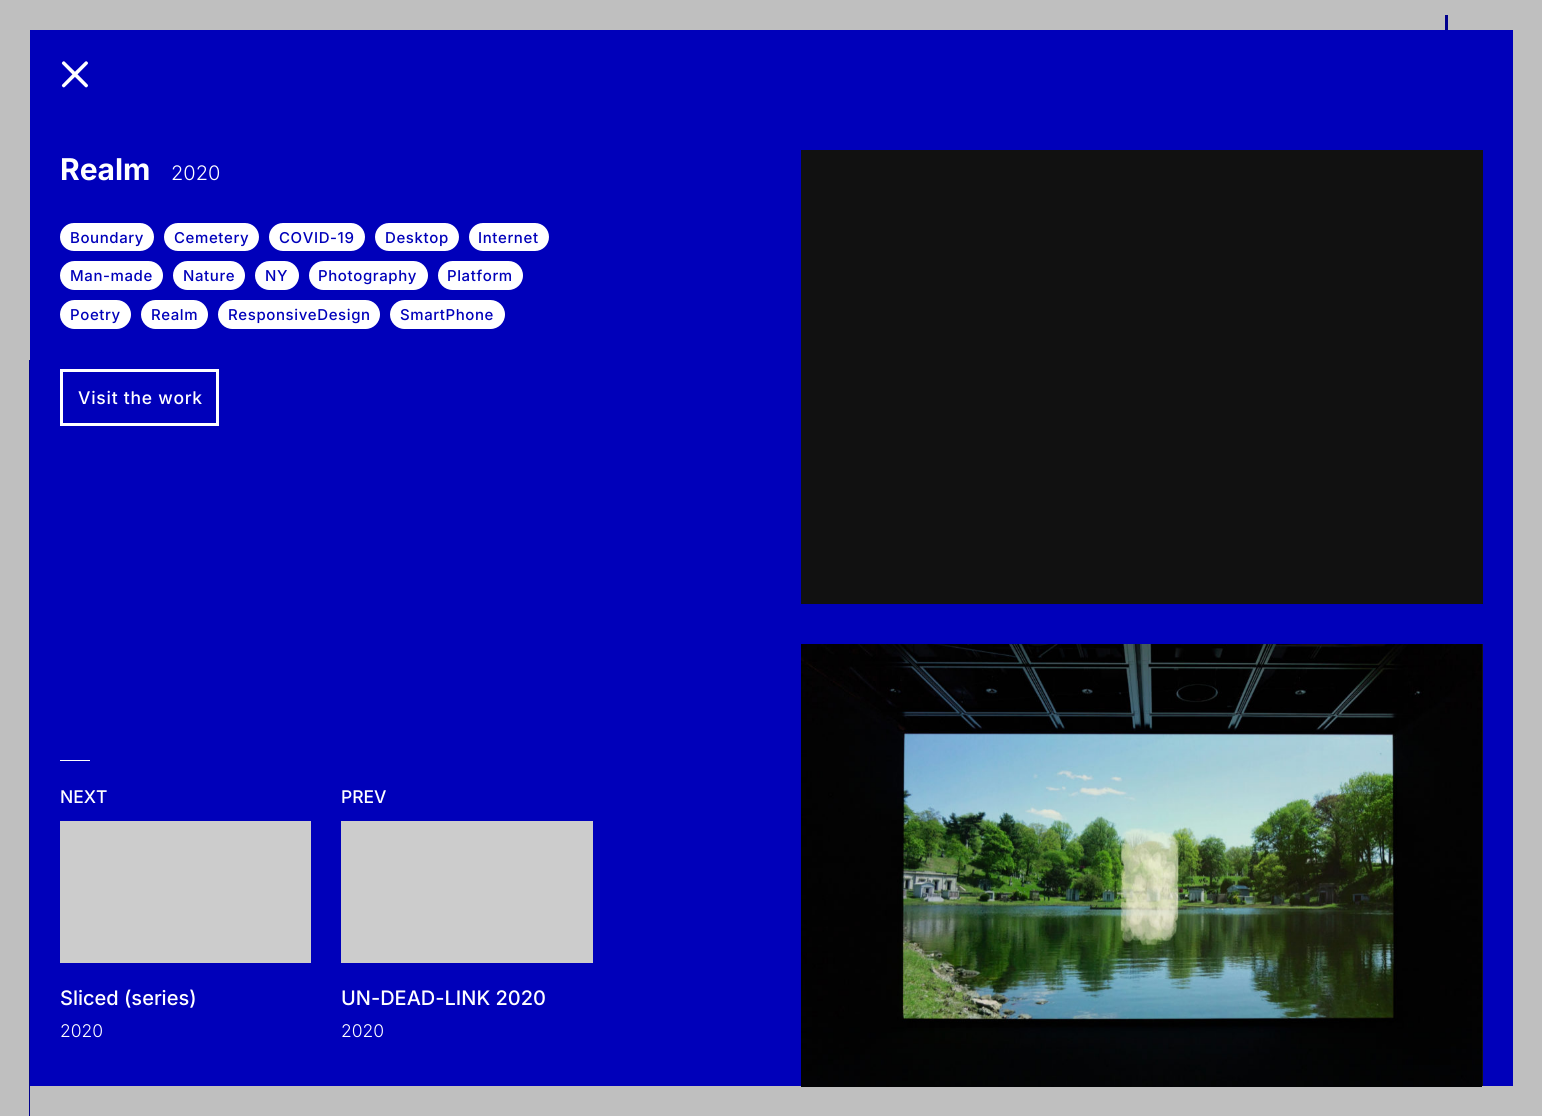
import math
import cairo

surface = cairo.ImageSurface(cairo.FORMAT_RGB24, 1542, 1116)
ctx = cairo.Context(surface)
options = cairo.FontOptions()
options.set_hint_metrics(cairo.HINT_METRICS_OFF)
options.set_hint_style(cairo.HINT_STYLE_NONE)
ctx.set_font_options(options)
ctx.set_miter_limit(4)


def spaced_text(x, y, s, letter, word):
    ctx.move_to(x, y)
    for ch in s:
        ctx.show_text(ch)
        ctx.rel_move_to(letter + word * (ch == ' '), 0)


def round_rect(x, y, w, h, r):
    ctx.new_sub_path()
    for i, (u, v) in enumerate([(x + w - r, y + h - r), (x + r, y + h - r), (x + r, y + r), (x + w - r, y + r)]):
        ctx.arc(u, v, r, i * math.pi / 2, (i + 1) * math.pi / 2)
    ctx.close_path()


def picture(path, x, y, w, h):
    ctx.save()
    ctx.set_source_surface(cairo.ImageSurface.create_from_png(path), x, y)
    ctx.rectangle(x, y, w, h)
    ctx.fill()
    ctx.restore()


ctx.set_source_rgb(0.749, 0.749, 0.749)
ctx.paint()
ctx.set_source_rgb(0, 0, 0.549)
ctx.rectangle(1445, 15, 3, 15)
ctx.fill()
ctx.rectangle(29, 360, 1, 756)
ctx.fill()
ctx.set_source_rgb(0, 0, 0.729)
ctx.rectangle(30, 30, 1483, 1056)
ctx.fill()
picture("img1.png", 61, 61, 27, 27)
ctx.select_font_face("Inter", cairo.FONT_SLANT_NORMAL, cairo.FONT_WEIGHT_BOLD)
ctx.set_font_size(30)
ctx.set_source_rgb(1, 1, 1)
ctx.move_to(60, 180)
ctx.show_text("Realm")
ctx.select_font_face("Inter Light")
ctx.set_font_size(20)
ctx.move_to(171, 180)
ctx.show_text("2020")
round_rect(60, 223, 94, 28, 14)
ctx.fill()
ctx.select_font_face("Inter Medium")
ctx.set_font_size(15)
ctx.set_source_rgb(0, 0, 0.729)
spaced_text(70, 243, "Boundary", 0.6, 0)
ctx.set_source_rgb(1, 1, 1)
round_rect(164, 223, 95, 28, 14)
ctx.fill()
ctx.set_source_rgb(0, 0, 0.729)
spaced_text(174, 243, "Cemetery", 0.6, 0)
ctx.set_source_rgb(1, 1, 1)
round_rect(269, 223, 96, 28, 14)
ctx.fill()
ctx.set_source_rgb(0, 0, 0.729)
spaced_text(279, 243, "COVID-19", 0.6, 0)
ctx.set_source_rgb(1, 1, 1)
round_rect(375, 223, 84, 28, 14)
ctx.fill()
ctx.set_source_rgb(0, 0, 0.729)
spaced_text(385, 243, "Desktop", 0.6, 0)
ctx.set_source_rgb(1, 1, 1)
round_rect(469, 223, 80, 28, 14)
ctx.fill()
ctx.set_source_rgb(0, 0, 0.729)
spaced_text(478, 243, "Internet", 0.6, 0)
ctx.set_source_rgb(1, 1, 1)
round_rect(60, 261, 103, 29, 14.5)
ctx.fill()
ctx.set_source_rgb(0, 0, 0.729)
spaced_text(70, 281, "Man-made", 0.6, 0)
ctx.set_source_rgb(1, 1, 1)
round_rect(173, 261, 72, 29, 14.5)
ctx.fill()
ctx.set_source_rgb(0, 0, 0.729)
spaced_text(183, 281, "Nature", 0.6, 0)
ctx.set_source_rgb(1, 1, 1)
round_rect(255, 261, 44, 29, 14.5)
ctx.fill()
ctx.set_source_rgb(0, 0, 0.729)
spaced_text(265, 281, "NY", 0.6, 0)
ctx.set_source_rgb(1, 1, 1)
round_rect(309, 261, 119, 29, 14.5)
ctx.fill()
ctx.set_source_rgb(0, 0, 0.729)
spaced_text(318, 281, "Photography", 0.6, 0)
ctx.set_source_rgb(1, 1, 1)
round_rect(438, 261, 85, 29, 14.5)
ctx.fill()
ctx.set_source_rgb(0, 0, 0.729)
spaced_text(447, 281, "Platform", 0.6, 0)
ctx.set_source_rgb(1, 1, 1)
round_rect(60, 300, 71, 29, 14.5)
ctx.fill()
ctx.set_source_rgb(0, 0, 0.729)
spaced_text(70, 320, "Poetry", 0.6, 0)
ctx.set_source_rgb(1, 1, 1)
round_rect(141, 300, 67, 29, 14.5)
ctx.fill()
ctx.set_source_rgb(0, 0, 0.729)
spaced_text(151, 320, "Realm", 0.6, 0)
ctx.set_source_rgb(1, 1, 1)
round_rect(218, 300, 162, 29, 14.5)
ctx.fill()
ctx.set_source_rgb(0, 0, 0.729)
spaced_text(228, 320, "ResponsiveDesign", 0.6, 0)
ctx.set_source_rgb(1, 1, 1)
round_rect(390, 300, 115, 29, 14.5)
ctx.fill()
ctx.set_source_rgb(0, 0, 0.729)
spaced_text(400, 320, "SmartPhone", 0.6, 0)
ctx.rectangle(61.5, 370.5, 156, 54)
ctx.set_source_rgb(1, 1, 1)
ctx.set_line_width(3)
ctx.stroke()
ctx.set_font_size(17.5)
spaced_text(78, 404, "Visit the work", 0.75, 0)
ctx.set_source_rgb(0.067, 0.067, 0.067)
ctx.rectangle(801, 150, 682, 454)
ctx.fill()
ctx.rectangle(1482, 644, 1, 442)
ctx.fill()
picture("img2.png", 801, 644, 681, 443)
ctx.set_source_rgb(1, 1, 1)
ctx.rectangle(60, 760, 30, 1)
ctx.fill()
ctx.move_to(60, 803)
ctx.show_text("NEXT")
ctx.set_source_rgb(0.8, 0.8, 0.8)
ctx.rectangle(60, 821, 251, 142)
ctx.fill()
ctx.set_font_size(20)
ctx.set_source_rgb(1, 1, 1)
ctx.move_to(60, 1005)
ctx.show_text("Sliced (series)")
ctx.select_font_face("Inter Light")
ctx.set_font_size(17.5)
ctx.move_to(60, 1037)
ctx.show_text("2020")
ctx.select_font_face("Inter Medium")
ctx.move_to(341, 803)
ctx.show_text("PREV")
ctx.set_source_rgb(0.8, 0.8, 0.8)
ctx.rectangle(341, 821, 252, 142)
ctx.fill()
ctx.set_font_size(20)
ctx.set_source_rgb(1, 1, 1)
ctx.move_to(341, 1005)
ctx.show_text("UN-DEAD-LINK 2020")
ctx.select_font_face("Inter Light")
ctx.set_font_size(17.5)
ctx.move_to(341, 1037)
ctx.show_text("2020")
surface.write_to_png("page.png")
